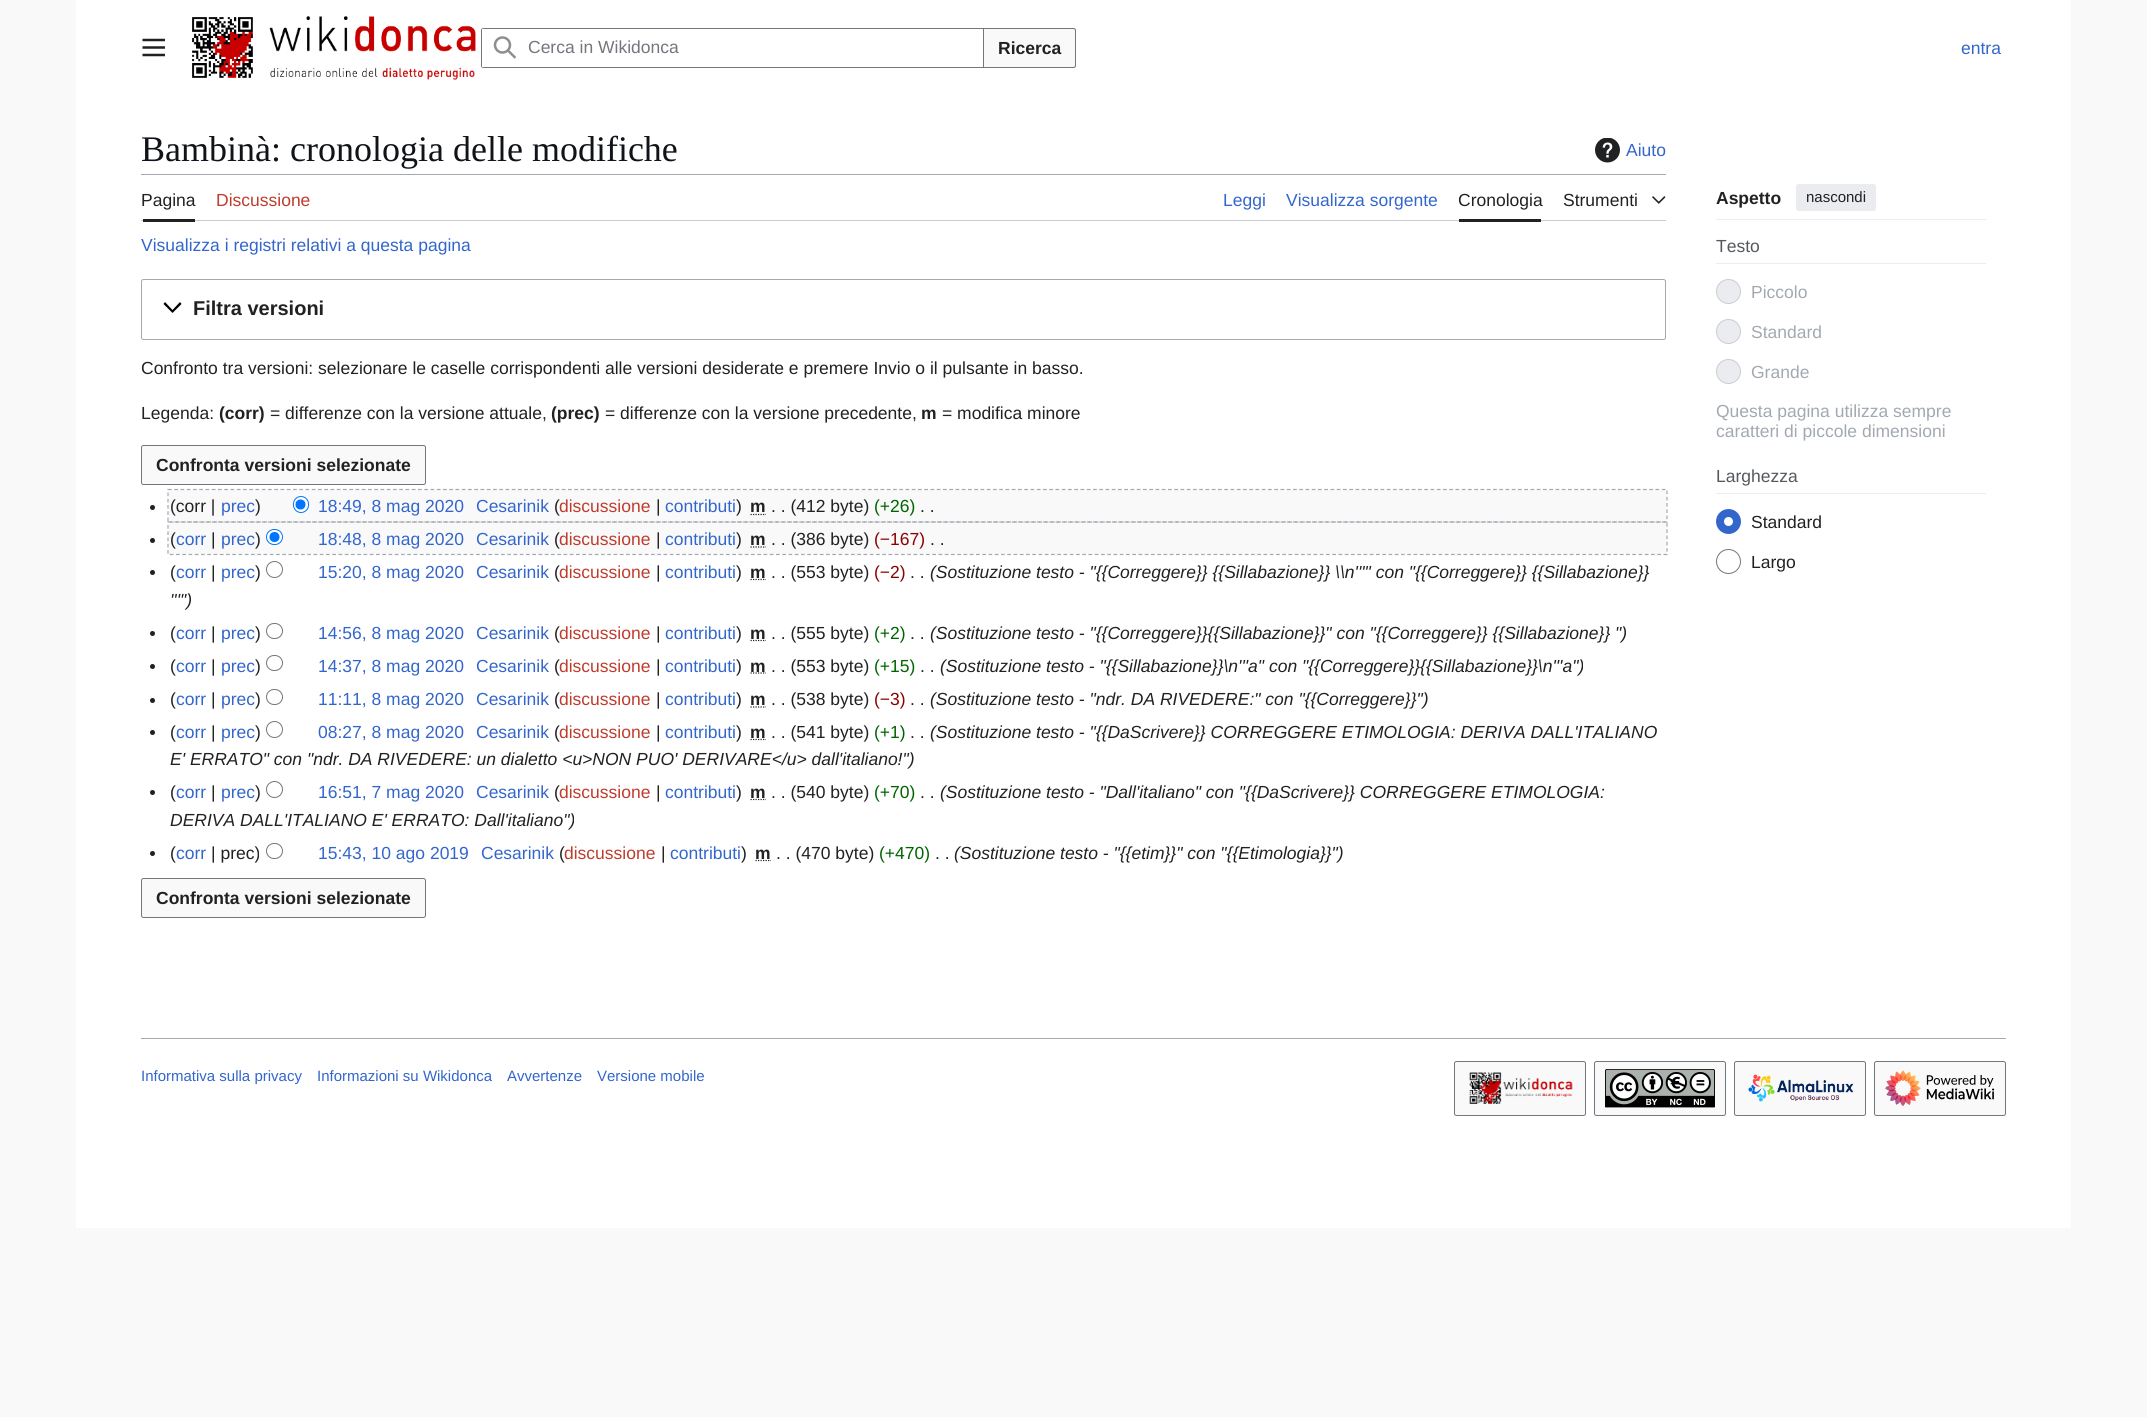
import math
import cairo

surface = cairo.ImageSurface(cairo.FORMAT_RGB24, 2147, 1417)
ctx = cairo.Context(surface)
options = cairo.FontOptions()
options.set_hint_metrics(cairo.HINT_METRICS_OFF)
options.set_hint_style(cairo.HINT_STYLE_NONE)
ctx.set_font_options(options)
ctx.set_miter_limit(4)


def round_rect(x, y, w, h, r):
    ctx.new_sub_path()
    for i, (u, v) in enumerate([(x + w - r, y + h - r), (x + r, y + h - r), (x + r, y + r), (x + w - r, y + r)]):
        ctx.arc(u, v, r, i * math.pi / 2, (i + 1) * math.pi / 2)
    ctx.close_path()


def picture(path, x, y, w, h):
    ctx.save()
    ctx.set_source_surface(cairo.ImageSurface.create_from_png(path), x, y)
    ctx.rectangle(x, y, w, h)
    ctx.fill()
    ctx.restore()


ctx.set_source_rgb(0.973, 0.976, 0.98)
ctx.paint()
ctx.set_source_rgb(1, 1, 1)
ctx.rectangle(76, 0, 1995, 95)
ctx.fill()
picture("img1.png", 142, 38, 23, 19)
picture("img2.png", 192, 17, 61, 61)
picture("img3.png", 269, 16, 207, 36)
picture("img4.png", 270, 67, 205, 13)
round_rect(481.5, 28.5, 594, 39, 2)
ctx.set_source_rgb(0.635, 0.663, 0.694)
ctx.set_line_width(1)
ctx.stroke()
ctx.set_source_rgb(0.973, 0.976, 0.98)
ctx.new_path()
ctx.move_to(983.5, 28.5)
ctx.line_to(1073.5, 28.5)
ctx.curve_to(1074.5, 28.5, 1075.5, 29.5, 1075.5, 30.5)
ctx.line_to(1075.5, 65.5)
ctx.curve_to(1075.5, 66.5, 1074.5, 67.5, 1073.5, 67.5)
ctx.line_to(983.5, 67.5)
ctx.close_path()
ctx.fill_preserve()
ctx.set_source_rgb(0.447, 0.467, 0.49)
ctx.stroke()
ctx.set_source_rgb(1, 1, 1)
ctx.new_path()
ctx.move_to(483.5, 28)
ctx.line_to(984, 28)
ctx.line_to(984, 68)
ctx.line_to(483.5, 68)
ctx.curve_to(482, 68, 481, 67, 481, 65.5)
ctx.line_to(481, 30.5)
ctx.curve_to(481, 29, 482, 28, 483.5, 28)
ctx.close_path()
ctx.fill()
ctx.set_source_rgb(0.447, 0.467, 0.49)
ctx.set_fill_rule(cairo.FILL_RULE_EVEN_ODD)
ctx.new_path()
ctx.move_to(484, 28)
ctx.curve_to(482, 28, 481, 29, 481, 30)
ctx.line_to(481, 66)
ctx.curve_to(481, 67, 482, 68, 484, 68)
ctx.line_to(984, 68)
ctx.line_to(984, 28)
ctx.close_path()
ctx.move_to(482, 29)
ctx.line_to(482, 67)
ctx.line_to(983, 67)
ctx.line_to(983, 29)
ctx.close_path()
ctx.fill()
picture("img5.png", 493, 36, 23, 23)
ctx.select_font_face("Liberation Sans")
ctx.set_font_size(17.5)
ctx.move_to(528, 53)
ctx.show_text("Cerca in Wikidonca")
ctx.select_font_face("Liberation Sans", cairo.FONT_SLANT_NORMAL, cairo.FONT_WEIGHT_BOLD)
ctx.set_source_rgb(0.125, 0.129, 0.133)
ctx.move_to(998, 54)
ctx.show_text("Ricerca")
ctx.select_font_face("Liberation Sans")
ctx.set_source_rgb(0.2, 0.4, 0.8)
ctx.move_to(1961, 54)
ctx.show_text("entra")
ctx.set_source_rgb(1, 1, 1)
ctx.rectangle(76, 95, 1995, 1133)
ctx.fill()
ctx.select_font_face("Liberation Serif")
ctx.set_font_size(36)
ctx.set_source_rgb(0.063, 0.078, 0.094)
ctx.move_to(141, 161)
ctx.show_text("Bambinà: cronologia delle modifiche")
picture("img6.png", 1595, 138, 25, 25)
ctx.select_font_face("Liberation Sans")
ctx.set_font_size(17.5)
ctx.set_source_rgb(0.2, 0.4, 0.8)
ctx.move_to(1626, 156)
ctx.show_text("Aiuto")
ctx.set_source_rgb(0.635, 0.663, 0.694)
ctx.rectangle(141, 174, 1525, 1)
ctx.fill()
ctx.set_source_rgb(0.784, 0.8, 0.82)
ctx.set_fill_rule(cairo.FILL_RULE_WINDING)
ctx.new_path()
ctx.move_to(141, 176)
ctx.line_to(141, 221)
ctx.line_to(1666, 221)
ctx.line_to(1666, 220)
ctx.line_to(141, 220)
ctx.close_path()
ctx.fill()
ctx.set_source_rgb(0.125, 0.129, 0.133)
ctx.rectangle(143, 219, 52, 3)
ctx.fill()
ctx.move_to(141, 206)
ctx.show_text("Pagina")
ctx.set_source_rgb(0.749, 0.235, 0.173)
ctx.move_to(216, 206)
ctx.show_text("Discussione")
ctx.set_source_rgb(0.2, 0.4, 0.8)
ctx.move_to(1223, 206)
ctx.show_text("Leggi")
ctx.move_to(1286, 206)
ctx.show_text("Visualizza sorgente")
ctx.set_source_rgb(0.125, 0.129, 0.133)
ctx.rectangle(1459, 219, 82, 3)
ctx.fill()
ctx.move_to(1458, 206)
ctx.show_text("Cronologia")
ctx.move_to(1563, 206)
ctx.show_text("Strumenti")
picture("img7.png", 1652, 196, 14, 8)
ctx.set_source_rgb(0.918, 0.925, 0.941)
ctx.rectangle(1716, 219, 270, 1)
ctx.fill()
ctx.select_font_face("Liberation Sans", cairo.FONT_SLANT_NORMAL, cairo.FONT_WEIGHT_BOLD)
ctx.set_source_rgb(0.125, 0.129, 0.133)
ctx.move_to(1716, 204)
ctx.show_text("Aspetto")
ctx.set_source_rgb(0.918, 0.925, 0.941)
round_rect(1796, 184, 80, 27, 2.5)
ctx.fill()
ctx.select_font_face("Liberation Sans")
ctx.set_font_size(15)
ctx.set_source_rgb(0.125, 0.129, 0.133)
ctx.move_to(1806, 202)
ctx.show_text("nascondi")
ctx.set_source_rgb(0.918, 0.925, 0.941)
ctx.rectangle(1716, 263, 270, 1)
ctx.fill()
ctx.set_font_size(17.5)
ctx.set_source_rgb(0.329, 0.349, 0.365)
ctx.move_to(1716, 252)
ctx.show_text("Testo")
ctx.set_source_rgb(0.918, 0.925, 0.941)
ctx.new_path()
ctx.arc(1728.5, 291.5, 12, 0, 2 * math.pi)
ctx.fill_preserve()
ctx.set_source_rgb(0.784, 0.8, 0.82)
ctx.stroke()
ctx.set_source_rgb(0.635, 0.663, 0.694)
ctx.move_to(1751, 298)
ctx.show_text("Piccolo")
ctx.set_source_rgb(0.918, 0.925, 0.941)
ctx.new_path()
ctx.arc(1728.5, 331.5, 12, 0, 2 * math.pi)
ctx.fill_preserve()
ctx.set_source_rgb(0.784, 0.8, 0.82)
ctx.stroke()
ctx.set_source_rgb(0.635, 0.663, 0.694)
ctx.move_to(1751, 338)
ctx.show_text("Standard")
ctx.set_source_rgb(0.918, 0.925, 0.941)
ctx.new_path()
ctx.arc(1728.5, 371.5, 12, 0, 2 * math.pi)
ctx.fill_preserve()
ctx.set_source_rgb(0.784, 0.8, 0.82)
ctx.stroke()
ctx.set_source_rgb(0.635, 0.663, 0.694)
ctx.move_to(1751, 378)
ctx.show_text("Grande")
ctx.move_to(1716, 417)
ctx.show_text("Questa pagina utilizza sempre")
ctx.move_to(1716, 437)
ctx.show_text("caratteri di piccole dimensioni")
ctx.set_source_rgb(0.918, 0.925, 0.941)
ctx.rectangle(1716, 493, 270, 1)
ctx.fill()
ctx.set_source_rgb(0.329, 0.349, 0.365)
ctx.move_to(1716, 482)
ctx.show_text("Larghezza")
ctx.new_path()
ctx.arc(1728.5, 521.5, 8.5, 0, 2 * math.pi)
ctx.set_source_rgb(0.2, 0.4, 0.8)
ctx.set_line_width(8)
ctx.stroke()
ctx.set_source_rgb(0.125, 0.129, 0.133)
ctx.move_to(1751, 528)
ctx.show_text("Standard")
ctx.new_path()
ctx.arc(1728.5, 561.5, 12, 0, 2 * math.pi)
ctx.set_source_rgb(0.447, 0.467, 0.49)
ctx.set_line_width(1)
ctx.stroke()
ctx.set_source_rgb(0.125, 0.129, 0.133)
ctx.move_to(1751, 568)
ctx.show_text("Largo")
ctx.set_source_rgb(0.2, 0.4, 0.8)
ctx.move_to(141, 251)
ctx.show_text("Visualizza i registri relativi a questa pagina")
round_rect(141.5, 279.5, 1524, 60, 2)
ctx.set_source_rgb(0.635, 0.663, 0.694)
ctx.stroke()
ctx.set_source_rgb(0, 0, 0)
ctx.new_path()
ctx.move_to(180, 302)
ctx.line_to(172.5, 310)
ctx.line_to(165, 302)
ctx.line_to(163.5, 304)
ctx.line_to(172.5, 313)
ctx.line_to(181.5, 304)
ctx.close_path()
ctx.fill()
ctx.select_font_face("Liberation Sans", cairo.FONT_SLANT_NORMAL, cairo.FONT_WEIGHT_BOLD)
ctx.set_font_size(20)
ctx.set_source_rgb(0.125, 0.129, 0.133)
ctx.move_to(193, 315)
ctx.show_text("Filtra versioni")
ctx.select_font_face("Liberation Sans")
ctx.set_font_size(17.5)
ctx.move_to(141, 374)
ctx.show_text("Confronto tra versioni: selezionare le caselle corrispondenti alle versioni desiderate e premere Invio o il pulsante in basso.")
ctx.move_to(141, 419)
ctx.show_text("Legenda:")
ctx.select_font_face("Liberation Sans", cairo.FONT_SLANT_NORMAL, cairo.FONT_WEIGHT_BOLD)
ctx.move_to(219, 419)
ctx.show_text("(corr)")
ctx.select_font_face("Liberation Sans")
ctx.move_to(270, 419)
ctx.show_text("= differenze con la versione attuale,")
ctx.select_font_face("Liberation Sans", cairo.FONT_SLANT_NORMAL, cairo.FONT_WEIGHT_BOLD)
ctx.move_to(551, 419)
ctx.show_text("(prec)")
ctx.select_font_face("Liberation Sans")
ctx.move_to(605, 419)
ctx.show_text("= differenze con la versione precedente,")
ctx.select_font_face("Liberation Sans", cairo.FONT_SLANT_NORMAL, cairo.FONT_WEIGHT_BOLD)
ctx.move_to(921, 419)
ctx.show_text("m")
ctx.select_font_face("Liberation Sans")
ctx.move_to(942, 419)
ctx.show_text("= modifica minore")
ctx.set_source_rgb(0.973, 0.976, 0.98)
round_rect(141.5, 445.5, 284, 39, 2)
ctx.fill_preserve()
ctx.set_source_rgb(0.447, 0.467, 0.49)
ctx.stroke()
ctx.select_font_face("Liberation Sans", cairo.FONT_SLANT_NORMAL, cairo.FONT_WEIGHT_BOLD)
ctx.set_source_rgb(0.125, 0.129, 0.133)
ctx.move_to(156, 471)
ctx.show_text("Confronta versioni selezionate")
ctx.set_source_rgb(0.973, 0.976, 0.98)
ctx.rectangle(169, 490, 1497, 31)
ctx.fill()
ctx.select_font_face("Liberation Sans")
ctx.set_source_rgb(0.125, 0.129, 0.133)
ctx.move_to(170, 512)
ctx.show_text("(corr |")
ctx.set_source_rgb(0.2, 0.4, 0.8)
ctx.move_to(221, 512)
ctx.show_text("prec")
ctx.set_source_rgb(0.125, 0.129, 0.133)
ctx.move_to(255, 512)
ctx.show_text(")")
ctx.set_source_rgb(1, 1, 1)
round_rect(293.5, 496.5, 15, 16, 7.5)
ctx.fill_preserve()
ctx.set_source_rgb(0, 0.459, 1)
ctx.stroke()
ctx.arc(300.5, 504.5, 5, 0, 2 * math.pi)
ctx.fill()
ctx.set_source_rgb(0.2, 0.4, 0.8)
ctx.move_to(318, 512)
ctx.show_text("18:49, 8 mag 2020")
ctx.move_to(476, 512)
ctx.show_text("Cesarinik")
ctx.set_source_rgb(0.125, 0.129, 0.133)
ctx.move_to(554, 512)
ctx.show_text("(")
ctx.set_source_rgb(0.749, 0.235, 0.173)
ctx.move_to(559, 512)
ctx.show_text("discussione")
ctx.set_source_rgb(0.125, 0.129, 0.133)
ctx.move_to(656, 512)
ctx.show_text("|")
ctx.set_source_rgb(0.2, 0.4, 0.8)
ctx.move_to(665, 512)
ctx.show_text("contributi")
ctx.set_source_rgb(0.125, 0.129, 0.133)
ctx.move_to(736, 512)
ctx.show_text(")")
ctx.select_font_face("Liberation Sans", cairo.FONT_SLANT_NORMAL, cairo.FONT_WEIGHT_BOLD)
ctx.move_to(750, 512)
ctx.show_text("m")
ctx.new_path()
ctx.move_to(750.5, 514.5)
ctx.line_to(766, 514.5)
ctx.set_line_width(1.2)
ctx.set_dash([1.25, 1.25])
ctx.stroke()
ctx.select_font_face("Liberation Sans")
ctx.move_to(771, 512)
ctx.show_text(". . (412 byte)")
ctx.set_source_rgb(0, 0.392, 0)
ctx.move_to(874, 512)
ctx.show_text("(+26)")
ctx.set_source_rgb(0.125, 0.129, 0.133)
ctx.move_to(920, 512)
ctx.show_text(". .")
ctx.new_path()
ctx.move_to(168, 489.5)
ctx.line_to(1667, 489.5)
ctx.line_to(1667, 522)
ctx.line_to(168, 522)
ctx.close_path()
ctx.set_source_rgb(0.635, 0.663, 0.694)
ctx.set_dash([3.75, 2.5])
ctx.stroke()
ctx.set_source_rgb(0.125, 0.129, 0.133)
ctx.arc(152.5, 507.5, 2.5, 0, 2 * math.pi)
ctx.fill()
ctx.set_source_rgb(0.973, 0.976, 0.98)
ctx.rectangle(169, 523, 1497, 31)
ctx.fill()
ctx.set_source_rgb(0.125, 0.129, 0.133)
ctx.move_to(170, 545)
ctx.show_text("(")
ctx.set_source_rgb(0.2, 0.4, 0.8)
ctx.move_to(176, 545)
ctx.show_text("corr")
ctx.set_source_rgb(0.125, 0.129, 0.133)
ctx.move_to(211, 545)
ctx.show_text("|")
ctx.set_source_rgb(0.2, 0.4, 0.8)
ctx.move_to(221, 545)
ctx.show_text("prec")
ctx.set_source_rgb(0.125, 0.129, 0.133)
ctx.move_to(255, 545)
ctx.show_text(")")
ctx.set_source_rgb(1, 1, 1)
round_rect(266.5, 529.5, 16, 15, 7.5)
ctx.fill_preserve()
ctx.set_source_rgb(0, 0.459, 1)
ctx.set_line_width(1)
ctx.set_dash([])
ctx.stroke()
ctx.arc(274.5, 537, 5, 0, 2 * math.pi)
ctx.fill()
ctx.set_source_rgb(0.2, 0.4, 0.8)
ctx.move_to(318, 545)
ctx.show_text("18:48, 8 mag 2020")
ctx.move_to(476, 545)
ctx.show_text("Cesarinik")
ctx.set_source_rgb(0.125, 0.129, 0.133)
ctx.move_to(554, 545)
ctx.show_text("(")
ctx.set_source_rgb(0.749, 0.235, 0.173)
ctx.move_to(559, 545)
ctx.show_text("discussione")
ctx.set_source_rgb(0.125, 0.129, 0.133)
ctx.move_to(656, 545)
ctx.show_text("|")
ctx.set_source_rgb(0.2, 0.4, 0.8)
ctx.move_to(665, 545)
ctx.show_text("contributi")
ctx.set_source_rgb(0.125, 0.129, 0.133)
ctx.move_to(736, 545)
ctx.show_text(")")
ctx.select_font_face("Liberation Sans", cairo.FONT_SLANT_NORMAL, cairo.FONT_WEIGHT_BOLD)
ctx.move_to(750, 545)
ctx.show_text("m")
ctx.new_path()
ctx.move_to(750.5, 547)
ctx.line_to(766, 547)
ctx.set_line_width(1.2)
ctx.set_dash([1.25, 1.25])
ctx.stroke()
ctx.select_font_face("Liberation Sans")
ctx.move_to(771, 545)
ctx.show_text(". . (386 byte)")
ctx.set_source_rgb(0.545, 0, 0)
ctx.move_to(874, 545)
ctx.show_text("(−167)")
ctx.set_source_rgb(0.125, 0.129, 0.133)
ctx.move_to(930, 545)
ctx.show_text(". .")
ctx.new_path()
ctx.move_to(168, 522)
ctx.line_to(1667, 522)
ctx.line_to(1667, 554.5)
ctx.line_to(168, 554.5)
ctx.close_path()
ctx.set_source_rgb(0.635, 0.663, 0.694)
ctx.set_dash([3.75, 2.5])
ctx.stroke()
ctx.set_source_rgb(0.125, 0.129, 0.133)
ctx.arc(152.5, 540.5, 2.5, 0, 2 * math.pi)
ctx.fill()
ctx.arc(152.5, 572.5, 2.5, 0, 2 * math.pi)
ctx.fill()
ctx.move_to(170, 578)
ctx.show_text("(")
ctx.set_source_rgb(0.2, 0.4, 0.8)
ctx.move_to(176, 578)
ctx.show_text("corr")
ctx.set_source_rgb(0.125, 0.129, 0.133)
ctx.move_to(211, 578)
ctx.show_text("|")
ctx.set_source_rgb(0.2, 0.4, 0.8)
ctx.move_to(221, 578)
ctx.show_text("prec")
ctx.set_source_rgb(0.125, 0.129, 0.133)
ctx.move_to(255, 578)
ctx.show_text(")")
ctx.new_path()
ctx.arc(274.5, 569.5, 8, 0, 2 * math.pi)
ctx.set_source_rgb(0.463, 0.463, 0.463)
ctx.set_line_width(1)
ctx.set_dash([])
ctx.stroke()
ctx.set_source_rgb(0.2, 0.4, 0.8)
ctx.move_to(318, 578)
ctx.show_text("15:20, 8 mag 2020")
ctx.move_to(476, 578)
ctx.show_text("Cesarinik")
ctx.set_source_rgb(0.125, 0.129, 0.133)
ctx.move_to(554, 578)
ctx.show_text("(")
ctx.set_source_rgb(0.749, 0.235, 0.173)
ctx.move_to(559, 578)
ctx.show_text("discussione")
ctx.set_source_rgb(0.125, 0.129, 0.133)
ctx.move_to(656, 578)
ctx.show_text("|")
ctx.set_source_rgb(0.2, 0.4, 0.8)
ctx.move_to(665, 578)
ctx.show_text("contributi")
ctx.set_source_rgb(0.125, 0.129, 0.133)
ctx.move_to(736, 578)
ctx.show_text(")")
ctx.select_font_face("Liberation Sans", cairo.FONT_SLANT_NORMAL, cairo.FONT_WEIGHT_BOLD)
ctx.move_to(750, 578)
ctx.show_text("m")
ctx.new_path()
ctx.move_to(750.5, 579.5)
ctx.line_to(766, 579.5)
ctx.set_line_width(1.2)
ctx.set_dash([1.25, 1.25])
ctx.stroke()
ctx.select_font_face("Liberation Sans")
ctx.move_to(771, 578)
ctx.show_text(". . (553 byte)")
ctx.set_source_rgb(0.545, 0, 0)
ctx.move_to(874, 578)
ctx.show_text("(−2)")
ctx.select_font_face("Liberation Sans", cairo.FONT_SLANT_ITALIC)
ctx.set_source_rgb(0.125, 0.129, 0.133)
ctx.move_to(930, 578)
ctx.show_text("(Sostituzione testo - \"{{Correggere}} {{Sillabazione}} \\\\n'''\" con \"{{Correggere}} {{Sillabazione}}")
ctx.select_font_face("Liberation Sans")
ctx.move_to(910, 578)
ctx.show_text(". .")
ctx.select_font_face("Liberation Sans", cairo.FONT_SLANT_ITALIC)
ctx.move_to(170, 606)
ctx.show_text("'''\")")
ctx.new_path()
ctx.arc(152.5, 633.5, 2.5, 0, 2 * math.pi)
ctx.fill()
ctx.select_font_face("Liberation Sans")
ctx.move_to(170, 639)
ctx.show_text("(")
ctx.set_source_rgb(0.2, 0.4, 0.8)
ctx.move_to(176, 639)
ctx.show_text("corr")
ctx.set_source_rgb(0.125, 0.129, 0.133)
ctx.move_to(211, 639)
ctx.show_text("|")
ctx.set_source_rgb(0.2, 0.4, 0.8)
ctx.move_to(221, 639)
ctx.show_text("prec")
ctx.set_source_rgb(0.125, 0.129, 0.133)
ctx.move_to(255, 639)
ctx.show_text(")")
round_rect(266.5, 623.5, 16, 15, 7.5)
ctx.set_source_rgb(0.463, 0.463, 0.463)
ctx.set_line_width(1)
ctx.set_dash([])
ctx.stroke()
ctx.set_source_rgb(0.2, 0.4, 0.8)
ctx.move_to(318, 639)
ctx.show_text("14:56, 8 mag 2020")
ctx.move_to(476, 639)
ctx.show_text("Cesarinik")
ctx.set_source_rgb(0.125, 0.129, 0.133)
ctx.move_to(554, 639)
ctx.show_text("(")
ctx.set_source_rgb(0.749, 0.235, 0.173)
ctx.move_to(559, 639)
ctx.show_text("discussione")
ctx.set_source_rgb(0.125, 0.129, 0.133)
ctx.move_to(656, 639)
ctx.show_text("|")
ctx.set_source_rgb(0.2, 0.4, 0.8)
ctx.move_to(665, 639)
ctx.show_text("contributi")
ctx.set_source_rgb(0.125, 0.129, 0.133)
ctx.move_to(736, 639)
ctx.show_text(")")
ctx.select_font_face("Liberation Sans", cairo.FONT_SLANT_NORMAL, cairo.FONT_WEIGHT_BOLD)
ctx.move_to(750, 639)
ctx.show_text("m")
ctx.new_path()
ctx.move_to(750.5, 640.5)
ctx.line_to(766, 640.5)
ctx.set_line_width(1.2)
ctx.set_dash([1.25, 1.25])
ctx.stroke()
ctx.select_font_face("Liberation Sans")
ctx.move_to(771, 639)
ctx.show_text(". . (555 byte)")
ctx.set_source_rgb(0, 0.392, 0)
ctx.move_to(874, 639)
ctx.show_text("(+2)")
ctx.select_font_face("Liberation Sans", cairo.FONT_SLANT_ITALIC)
ctx.set_source_rgb(0.125, 0.129, 0.133)
ctx.move_to(930, 639)
ctx.show_text("(Sostituzione testo - \"{{Correggere}}{{Sillabazione}}\" con \"{{Correggere}} {{Sillabazione}} \")")
ctx.select_font_face("Liberation Sans")
ctx.move_to(910, 639)
ctx.show_text(". .")
ctx.new_path()
ctx.arc(152.5, 666.5, 2.5, 0, 2 * math.pi)
ctx.fill()
ctx.move_to(170, 672)
ctx.show_text("(")
ctx.set_source_rgb(0.2, 0.4, 0.8)
ctx.move_to(176, 672)
ctx.show_text("corr")
ctx.set_source_rgb(0.125, 0.129, 0.133)
ctx.move_to(211, 672)
ctx.show_text("|")
ctx.set_source_rgb(0.2, 0.4, 0.8)
ctx.move_to(221, 672)
ctx.show_text("prec")
ctx.set_source_rgb(0.125, 0.129, 0.133)
ctx.move_to(255, 672)
ctx.show_text(")")
round_rect(266.5, 655.5, 16, 15, 7.5)
ctx.set_source_rgb(0.463, 0.463, 0.463)
ctx.set_line_width(1)
ctx.set_dash([])
ctx.stroke()
ctx.set_source_rgb(0.2, 0.4, 0.8)
ctx.move_to(318, 672)
ctx.show_text("14:37, 8 mag 2020")
ctx.move_to(476, 672)
ctx.show_text("Cesarinik")
ctx.set_source_rgb(0.125, 0.129, 0.133)
ctx.move_to(554, 672)
ctx.show_text("(")
ctx.set_source_rgb(0.749, 0.235, 0.173)
ctx.move_to(559, 672)
ctx.show_text("discussione")
ctx.set_source_rgb(0.125, 0.129, 0.133)
ctx.move_to(656, 672)
ctx.show_text("|")
ctx.set_source_rgb(0.2, 0.4, 0.8)
ctx.move_to(665, 672)
ctx.show_text("contributi")
ctx.set_source_rgb(0.125, 0.129, 0.133)
ctx.move_to(736, 672)
ctx.show_text(")")
ctx.select_font_face("Liberation Sans", cairo.FONT_SLANT_NORMAL, cairo.FONT_WEIGHT_BOLD)
ctx.move_to(750, 672)
ctx.show_text("m")
ctx.new_path()
ctx.move_to(750.5, 673)
ctx.line_to(766, 673)
ctx.set_line_width(1.2)
ctx.set_dash([1.25, 1.25])
ctx.stroke()
ctx.select_font_face("Liberation Sans")
ctx.move_to(771, 672)
ctx.show_text(". . (553 byte)")
ctx.set_source_rgb(0, 0.392, 0)
ctx.move_to(874, 672)
ctx.show_text("(+15)")
ctx.select_font_face("Liberation Sans", cairo.FONT_SLANT_ITALIC)
ctx.set_source_rgb(0.125, 0.129, 0.133)
ctx.move_to(940, 672)
ctx.show_text("(Sostituzione testo - \"{{Sillabazione}}\\n'''a\" con \"{{Correggere}}{{Sillabazione}}\\n'''a\")")
ctx.select_font_face("Liberation Sans")
ctx.move_to(920, 672)
ctx.show_text(". .")
ctx.new_path()
ctx.arc(152.5, 700.5, 2.5, 0, 2 * math.pi)
ctx.fill()
ctx.move_to(170, 705)
ctx.show_text("(")
ctx.set_source_rgb(0.2, 0.4, 0.8)
ctx.move_to(176, 705)
ctx.show_text("corr")
ctx.set_source_rgb(0.125, 0.129, 0.133)
ctx.move_to(211, 705)
ctx.show_text("|")
ctx.set_source_rgb(0.2, 0.4, 0.8)
ctx.move_to(221, 705)
ctx.show_text("prec")
ctx.set_source_rgb(0.125, 0.129, 0.133)
ctx.move_to(255, 705)
ctx.show_text(")")
round_rect(266.5, 689.5, 16, 15, 7.5)
ctx.set_source_rgb(0.463, 0.463, 0.463)
ctx.set_line_width(1)
ctx.set_dash([])
ctx.stroke()
ctx.set_source_rgb(0.2, 0.4, 0.8)
ctx.move_to(318, 705)
ctx.show_text("11:11, 8 mag 2020")
ctx.move_to(476, 705)
ctx.show_text("Cesarinik")
ctx.set_source_rgb(0.125, 0.129, 0.133)
ctx.move_to(554, 705)
ctx.show_text("(")
ctx.set_source_rgb(0.749, 0.235, 0.173)
ctx.move_to(559, 705)
ctx.show_text("discussione")
ctx.set_source_rgb(0.125, 0.129, 0.133)
ctx.move_to(656, 705)
ctx.show_text("|")
ctx.set_source_rgb(0.2, 0.4, 0.8)
ctx.move_to(665, 705)
ctx.show_text("contributi")
ctx.set_source_rgb(0.125, 0.129, 0.133)
ctx.move_to(736, 705)
ctx.show_text(")")
ctx.select_font_face("Liberation Sans", cairo.FONT_SLANT_NORMAL, cairo.FONT_WEIGHT_BOLD)
ctx.move_to(750, 705)
ctx.show_text("m")
ctx.new_path()
ctx.move_to(750.5, 707)
ctx.line_to(766, 707)
ctx.set_line_width(1.2)
ctx.set_dash([1.25, 1.25])
ctx.stroke()
ctx.select_font_face("Liberation Sans")
ctx.move_to(771, 705)
ctx.show_text(". . (538 byte)")
ctx.set_source_rgb(0.545, 0, 0)
ctx.move_to(874, 705)
ctx.show_text("(−3)")
ctx.select_font_face("Liberation Sans", cairo.FONT_SLANT_ITALIC)
ctx.set_source_rgb(0.125, 0.129, 0.133)
ctx.move_to(930, 705)
ctx.show_text("(Sostituzione testo - \"ndr. DA RIVEDERE:\" con \"{{Correggere}}\")")
ctx.select_font_face("Liberation Sans")
ctx.move_to(910, 705)
ctx.show_text(". .")
ctx.new_path()
ctx.arc(152.5, 732.5, 2.5, 0, 2 * math.pi)
ctx.fill()
ctx.move_to(170, 738)
ctx.show_text("(")
ctx.set_source_rgb(0.2, 0.4, 0.8)
ctx.move_to(176, 738)
ctx.show_text("corr")
ctx.set_source_rgb(0.125, 0.129, 0.133)
ctx.move_to(211, 738)
ctx.show_text("|")
ctx.set_source_rgb(0.2, 0.4, 0.8)
ctx.move_to(221, 738)
ctx.show_text("prec")
ctx.set_source_rgb(0.125, 0.129, 0.133)
ctx.move_to(255, 738)
ctx.show_text(")")
ctx.new_path()
ctx.arc(274.5, 729.5, 8, 0, 2 * math.pi)
ctx.set_source_rgb(0.463, 0.463, 0.463)
ctx.set_line_width(1)
ctx.set_dash([])
ctx.stroke()
ctx.set_source_rgb(0.2, 0.4, 0.8)
ctx.move_to(318, 738)
ctx.show_text("08:27, 8 mag 2020")
ctx.move_to(476, 738)
ctx.show_text("Cesarinik")
ctx.set_source_rgb(0.125, 0.129, 0.133)
ctx.move_to(554, 738)
ctx.show_text("(")
ctx.set_source_rgb(0.749, 0.235, 0.173)
ctx.move_to(559, 738)
ctx.show_text("discussione")
ctx.set_source_rgb(0.125, 0.129, 0.133)
ctx.move_to(656, 738)
ctx.show_text("|")
ctx.set_source_rgb(0.2, 0.4, 0.8)
ctx.move_to(665, 738)
ctx.show_text("contributi")
ctx.set_source_rgb(0.125, 0.129, 0.133)
ctx.move_to(736, 738)
ctx.show_text(")")
ctx.select_font_face("Liberation Sans", cairo.FONT_SLANT_NORMAL, cairo.FONT_WEIGHT_BOLD)
ctx.move_to(750, 738)
ctx.show_text("m")
ctx.new_path()
ctx.move_to(750.5, 739.5)
ctx.line_to(766, 739.5)
ctx.set_line_width(1.2)
ctx.set_dash([1.25, 1.25])
ctx.stroke()
ctx.select_font_face("Liberation Sans")
ctx.move_to(771, 738)
ctx.show_text(". . (541 byte)")
ctx.set_source_rgb(0, 0.392, 0)
ctx.move_to(874, 738)
ctx.show_text("(+1)")
ctx.select_font_face("Liberation Sans", cairo.FONT_SLANT_ITALIC)
ctx.set_source_rgb(0.125, 0.129, 0.133)
ctx.move_to(930, 738)
ctx.show_text("(Sostituzione testo - \"{{DaScrivere}} CORREGGERE ETIMOLOGIA: DERIVA DALL'ITALIANO")
ctx.select_font_face("Liberation Sans")
ctx.move_to(910, 738)
ctx.show_text(". .")
ctx.select_font_face("Liberation Sans", cairo.FONT_SLANT_ITALIC)
ctx.move_to(170, 765)
ctx.show_text("E' ERRATO\" con \"ndr. DA RIVEDERE: un dialetto <u>NON PUO' DERIVARE</u> dall'italiano!\")")
ctx.new_path()
ctx.arc(152.5, 792.5, 2.5, 0, 2 * math.pi)
ctx.fill()
ctx.select_font_face("Liberation Sans")
ctx.move_to(170, 798)
ctx.show_text("(")
ctx.set_source_rgb(0.2, 0.4, 0.8)
ctx.move_to(176, 798)
ctx.show_text("corr")
ctx.set_source_rgb(0.125, 0.129, 0.133)
ctx.move_to(211, 798)
ctx.show_text("|")
ctx.set_source_rgb(0.2, 0.4, 0.8)
ctx.move_to(221, 798)
ctx.show_text("prec")
ctx.set_source_rgb(0.125, 0.129, 0.133)
ctx.move_to(255, 798)
ctx.show_text(")")
ctx.new_path()
ctx.arc(274.5, 789.5, 8, 0, 2 * math.pi)
ctx.set_source_rgb(0.463, 0.463, 0.463)
ctx.set_line_width(1)
ctx.set_dash([])
ctx.stroke()
ctx.set_source_rgb(0.2, 0.4, 0.8)
ctx.move_to(318, 798)
ctx.show_text("16:51, 7 mag 2020")
ctx.move_to(476, 798)
ctx.show_text("Cesarinik")
ctx.set_source_rgb(0.125, 0.129, 0.133)
ctx.move_to(554, 798)
ctx.show_text("(")
ctx.set_source_rgb(0.749, 0.235, 0.173)
ctx.move_to(559, 798)
ctx.show_text("discussione")
ctx.set_source_rgb(0.125, 0.129, 0.133)
ctx.move_to(656, 798)
ctx.show_text("|")
ctx.set_source_rgb(0.2, 0.4, 0.8)
ctx.move_to(665, 798)
ctx.show_text("contributi")
ctx.set_source_rgb(0.125, 0.129, 0.133)
ctx.move_to(736, 798)
ctx.show_text(")")
ctx.select_font_face("Liberation Sans", cairo.FONT_SLANT_NORMAL, cairo.FONT_WEIGHT_BOLD)
ctx.move_to(750, 798)
ctx.show_text("m")
ctx.new_path()
ctx.move_to(750.5, 799.5)
ctx.line_to(766, 799.5)
ctx.set_line_width(1.2)
ctx.set_dash([1.25, 1.25])
ctx.stroke()
ctx.select_font_face("Liberation Sans")
ctx.move_to(771, 798)
ctx.show_text(". . (540 byte)")
ctx.set_source_rgb(0, 0.392, 0)
ctx.move_to(874, 798)
ctx.show_text("(+70)")
ctx.select_font_face("Liberation Sans", cairo.FONT_SLANT_ITALIC)
ctx.set_source_rgb(0.125, 0.129, 0.133)
ctx.move_to(940, 798)
ctx.show_text("(Sostituzione testo - \"Dall'italiano\" con \"{{DaScrivere}} CORREGGERE ETIMOLOGIA:")
ctx.select_font_face("Liberation Sans")
ctx.move_to(920, 798)
ctx.show_text(". .")
ctx.select_font_face("Liberation Sans", cairo.FONT_SLANT_ITALIC)
ctx.move_to(170, 826)
ctx.show_text("DERIVA DALL'ITALIANO E' ERRATO: Dall'italiano\")")
ctx.new_path()
ctx.arc(152.5, 853.5, 2.5, 0, 2 * math.pi)
ctx.fill()
ctx.select_font_face("Liberation Sans")
ctx.move_to(170, 859)
ctx.show_text("(")
ctx.set_source_rgb(0.2, 0.4, 0.8)
ctx.move_to(176, 859)
ctx.show_text("corr")
ctx.set_source_rgb(0.125, 0.129, 0.133)
ctx.move_to(211, 859)
ctx.show_text("| prec)")
round_rect(266.5, 843.5, 16, 15, 7.5)
ctx.set_source_rgb(0.463, 0.463, 0.463)
ctx.set_line_width(1)
ctx.set_dash([])
ctx.stroke()
ctx.set_source_rgb(0.2, 0.4, 0.8)
ctx.move_to(318, 859)
ctx.show_text("15:43, 10 ago 2019")
ctx.move_to(481, 859)
ctx.show_text("Cesarinik")
ctx.set_source_rgb(0.125, 0.129, 0.133)
ctx.move_to(559, 859)
ctx.show_text("(")
ctx.set_source_rgb(0.749, 0.235, 0.173)
ctx.move_to(564, 859)
ctx.show_text("discussione")
ctx.set_source_rgb(0.125, 0.129, 0.133)
ctx.move_to(661, 859)
ctx.show_text("|")
ctx.set_source_rgb(0.2, 0.4, 0.8)
ctx.move_to(670, 859)
ctx.show_text("contributi")
ctx.set_source_rgb(0.125, 0.129, 0.133)
ctx.move_to(741, 859)
ctx.show_text(")")
ctx.select_font_face("Liberation Sans", cairo.FONT_SLANT_NORMAL, cairo.FONT_WEIGHT_BOLD)
ctx.move_to(755, 859)
ctx.show_text("m")
ctx.new_path()
ctx.move_to(755.5, 860.5)
ctx.line_to(771, 860.5)
ctx.set_line_width(1.2)
ctx.set_dash([1.25, 1.25])
ctx.stroke()
ctx.select_font_face("Liberation Sans")
ctx.move_to(776, 859)
ctx.show_text(". . (470 byte)")
ctx.set_source_rgb(0, 0.392, 0)
ctx.move_to(879, 859)
ctx.show_text("(+470)")
ctx.select_font_face("Liberation Sans", cairo.FONT_SLANT_ITALIC)
ctx.set_source_rgb(0.125, 0.129, 0.133)
ctx.move_to(954, 859)
ctx.show_text("(Sostituzione testo - \"{{etim}}\" con \"{{Etimologia}}\")")
ctx.select_font_face("Liberation Sans")
ctx.move_to(935, 859)
ctx.show_text(". .")
ctx.set_source_rgb(0.973, 0.976, 0.98)
round_rect(141.5, 878.5, 284, 39, 2)
ctx.fill_preserve()
ctx.set_source_rgb(0.447, 0.467, 0.49)
ctx.set_line_width(1)
ctx.set_dash([])
ctx.stroke()
ctx.select_font_face("Liberation Sans", cairo.FONT_SLANT_NORMAL, cairo.FONT_WEIGHT_BOLD)
ctx.set_source_rgb(0.125, 0.129, 0.133)
ctx.move_to(156, 904)
ctx.show_text("Confronta versioni selezionate")
ctx.set_source_rgb(0.635, 0.663, 0.694)
ctx.rectangle(141, 1038, 1865, 1)
ctx.fill()
ctx.select_font_face("Liberation Sans")
ctx.set_font_size(15)
ctx.set_source_rgb(0.2, 0.4, 0.8)
ctx.move_to(141, 1081)
ctx.show_text("Informativa sulla privacy")
ctx.move_to(317, 1081)
ctx.show_text("Informazioni su Wikidonca")
ctx.move_to(507, 1081)
ctx.show_text("Avvertenze")
ctx.move_to(597, 1081)
ctx.show_text("Versione mobile")
ctx.set_source_rgb(0.973, 0.976, 0.98)
round_rect(1454.5, 1061.5, 131, 54, 2)
ctx.fill_preserve()
ctx.set_source_rgb(0.447, 0.467, 0.49)
ctx.stroke()
picture("img8.png", 1469, 1072, 104, 32)
ctx.set_source_rgb(0.973, 0.976, 0.98)
round_rect(1594.5, 1061.5, 131, 54, 2)
ctx.fill_preserve()
ctx.set_source_rgb(0.447, 0.467, 0.49)
ctx.stroke()
picture("img9.png", 1605, 1069, 110, 39)
ctx.set_source_rgb(0.973, 0.976, 0.98)
round_rect(1734.5, 1061.5, 131, 54, 2)
ctx.fill_preserve()
ctx.set_source_rgb(0.447, 0.467, 0.49)
ctx.stroke()
picture("img10.png", 1748, 1074, 106, 28)
ctx.set_source_rgb(0.973, 0.976, 0.98)
round_rect(1874.5, 1061.5, 131, 54, 2)
ctx.fill_preserve()
ctx.set_source_rgb(0.447, 0.467, 0.49)
ctx.stroke()
picture("img11.png", 1885, 1070, 110, 37)
surface.write_to_png("page.png")
